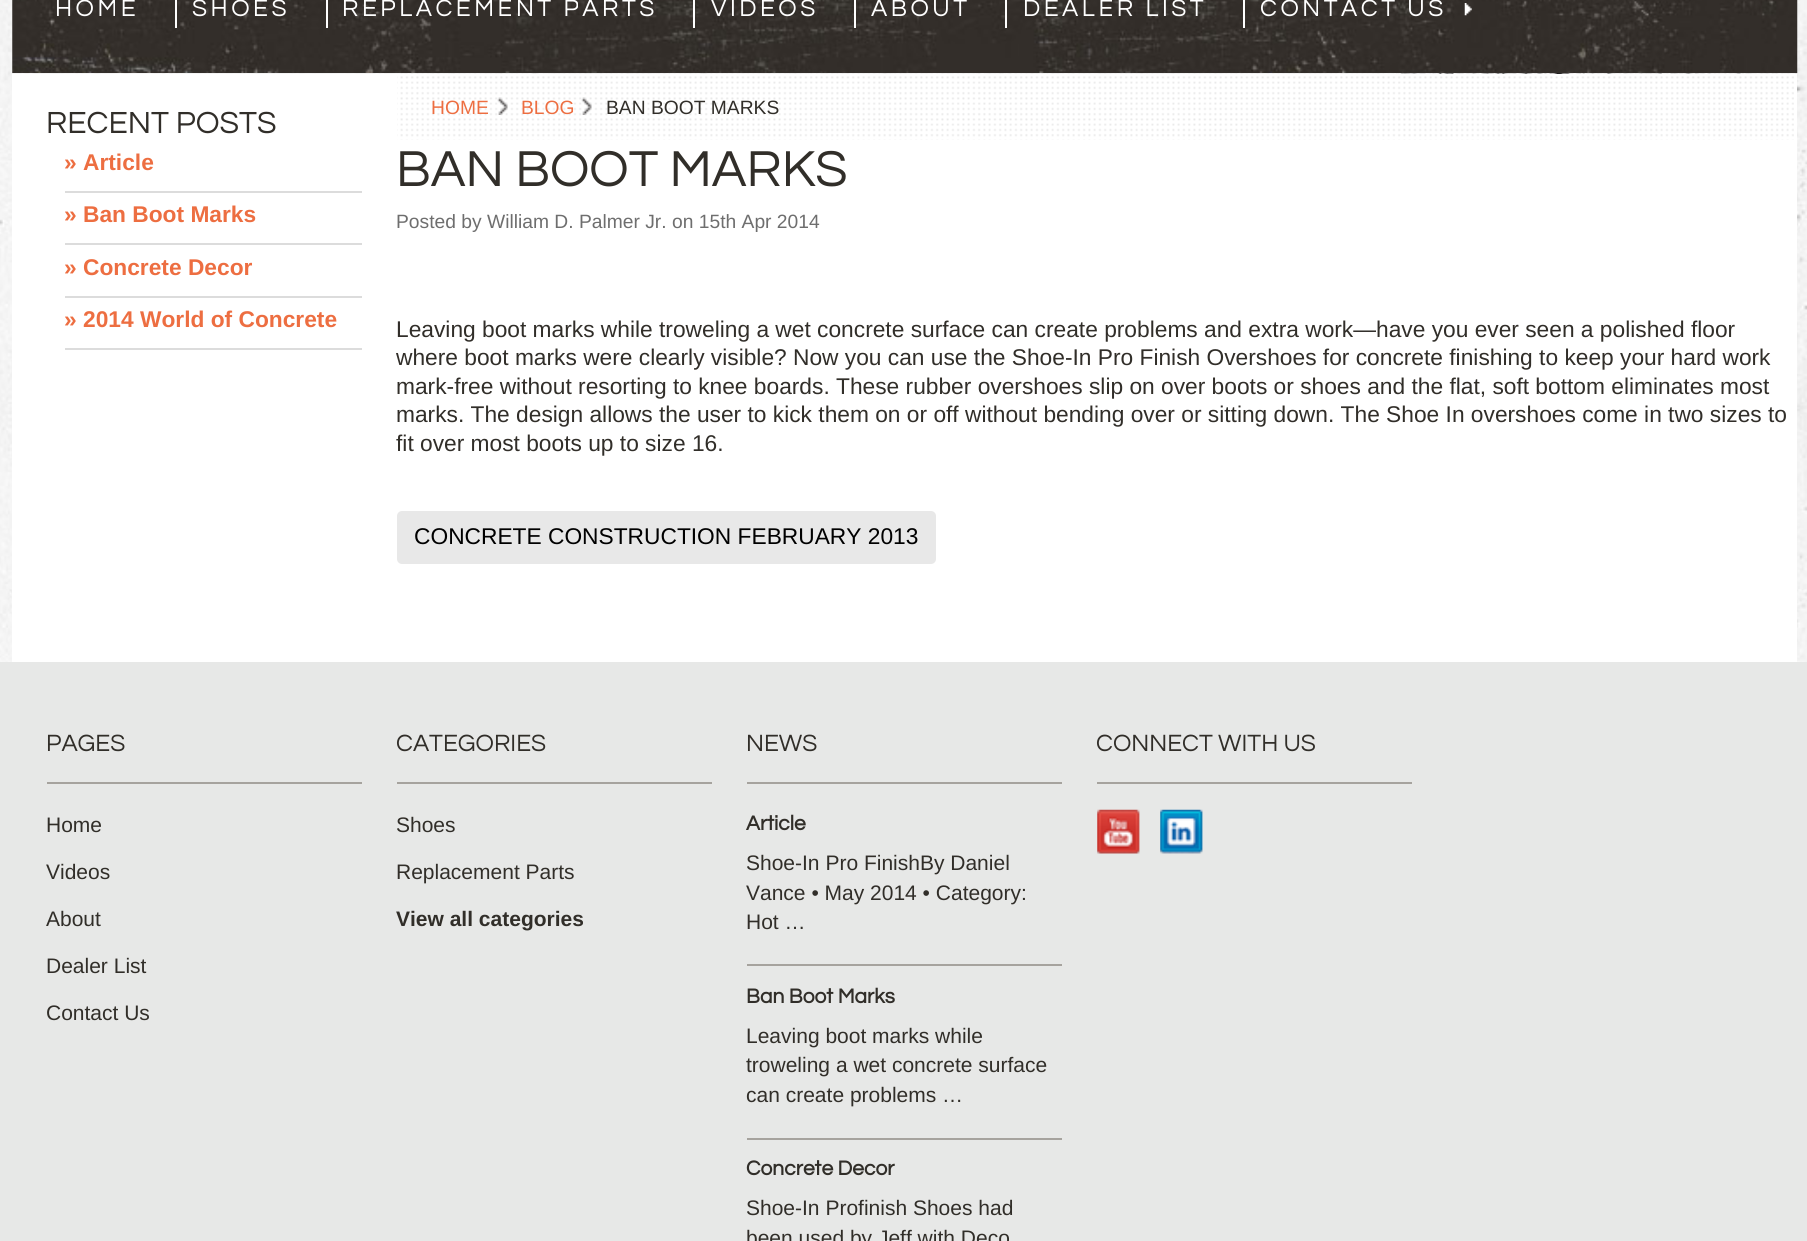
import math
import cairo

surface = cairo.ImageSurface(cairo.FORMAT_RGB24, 1807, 1241)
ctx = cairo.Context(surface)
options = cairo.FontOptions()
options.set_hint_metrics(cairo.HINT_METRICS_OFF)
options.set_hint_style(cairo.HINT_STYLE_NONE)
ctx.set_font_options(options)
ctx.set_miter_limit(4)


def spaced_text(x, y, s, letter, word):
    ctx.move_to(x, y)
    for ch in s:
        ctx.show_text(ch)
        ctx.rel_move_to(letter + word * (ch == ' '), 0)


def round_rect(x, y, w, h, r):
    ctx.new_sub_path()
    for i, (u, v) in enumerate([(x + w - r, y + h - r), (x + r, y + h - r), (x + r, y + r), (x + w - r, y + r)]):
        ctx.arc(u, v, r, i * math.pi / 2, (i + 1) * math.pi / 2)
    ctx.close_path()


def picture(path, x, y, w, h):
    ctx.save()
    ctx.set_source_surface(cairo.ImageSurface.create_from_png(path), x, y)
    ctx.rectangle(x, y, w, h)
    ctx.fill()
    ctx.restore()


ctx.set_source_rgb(1, 1, 1)
ctx.paint()
picture("img1.png", 0, 589, 1807, 73)
picture("img2.png", 0, 0, 1807, 590)
picture("img3.png", 12, 0, 1786, 73)
ctx.select_font_face("Questrial")
ctx.set_font_size(24.5)
ctx.set_source_rgb(1, 1, 1)
spaced_text(55, 16, "HOME", 3.5, 0)
ctx.rectangle(175, 0, 2, 28)
ctx.fill()
spaced_text(192, 16, "SHOES", 3.5, 0)
ctx.rectangle(326, 0, 2, 28)
ctx.fill()
spaced_text(342, 16, "REPLACEMENT PARTS", 3.5, 0)
ctx.rectangle(693, 0, 2, 28)
ctx.fill()
spaced_text(711, 16, "VIDEOS", 3.5, 0)
ctx.rectangle(854, 0, 2, 28)
ctx.fill()
spaced_text(871, 16, "ABOUT", 3.5, 0)
ctx.rectangle(1005, 0, 2, 28)
ctx.fill()
spaced_text(1023, 16, "DEALER LIST", 3.5, 0)
ctx.rectangle(1243, 0, 2, 28)
ctx.fill()
spaced_text(1260, 16, "CONTACT US", 3.5, 0)
picture("img4.png", 1464, 3, 8, 13)
ctx.rectangle(12, 74, 1785, 588)
ctx.fill()
ctx.set_font_size(31.75)
ctx.set_source_rgb(0.192, 0.18, 0.161)
ctx.move_to(46, 133)
ctx.show_text("RECENT POSTS")
ctx.set_source_rgb(0.863, 0.863, 0.863)
ctx.rectangle(65, 191, 297, 2)
ctx.fill()
ctx.select_font_face("Liberation Sans", cairo.FONT_SLANT_NORMAL, cairo.FONT_WEIGHT_BOLD)
ctx.set_font_size(22.75)
ctx.set_source_rgb(0.929, 0.431, 0.255)
ctx.move_to(64, 170)
ctx.show_text("» Article")
ctx.set_source_rgb(0.863, 0.863, 0.863)
ctx.rectangle(65, 243, 297, 2)
ctx.fill()
ctx.set_source_rgb(0.929, 0.431, 0.255)
ctx.move_to(64, 222)
ctx.show_text("» Ban Boot Marks")
ctx.set_source_rgb(0.863, 0.863, 0.863)
ctx.rectangle(65, 296, 297, 2)
ctx.fill()
ctx.set_source_rgb(0.929, 0.431, 0.255)
ctx.move_to(64, 275)
ctx.show_text("» Concrete Decor")
ctx.set_source_rgb(0.863, 0.863, 0.863)
ctx.rectangle(65, 348, 297, 2)
ctx.fill()
ctx.set_source_rgb(0.929, 0.431, 0.255)
ctx.move_to(64, 327)
ctx.show_text("» 2014 World of Concrete")
picture("img5.png", 397, 73, 1397, 67)
picture("img6.png", 497, 97, 11, 18)
ctx.select_font_face("Liberation Sans")
ctx.set_font_size(19.25)
ctx.move_to(431, 114)
ctx.show_text("HOME")
picture("img7.png", 581, 97, 11, 18)
ctx.move_to(521, 114)
ctx.show_text("BLOG")
ctx.set_source_rgb(0.192, 0.18, 0.161)
ctx.move_to(606, 114)
ctx.show_text("BAN BOOT MARKS")
ctx.select_font_face("Questrial")
ctx.set_font_size(52.5)
ctx.move_to(396, 186)
ctx.show_text("BAN BOOT MARKS")
ctx.select_font_face("Liberation Sans")
ctx.set_font_size(19.25)
ctx.set_source_rgb(0.431, 0.431, 0.431)
ctx.move_to(396, 228)
ctx.show_text("Posted by William D. Palmer Jr. on 15th Apr 2014")
ctx.set_font_size(22.75)
ctx.set_source_rgb(0.192, 0.18, 0.161)
ctx.move_to(396, 337)
ctx.show_text("Leaving boot marks while troweling a wet concrete surface can create problems and extra work—have you ever seen a polished floor")
ctx.move_to(396, 365)
ctx.show_text("where boot marks were clearly visible? Now you can use the Shoe-In Pro Finish Overshoes for concrete finishing to keep your hard work")
ctx.move_to(396, 394)
ctx.show_text("mark-free without resorting to knee boards. These rubber overshoes slip on over boots or shoes and the flat, soft bottom eliminates most")
ctx.move_to(396, 422)
ctx.show_text("marks. The design allows the user to kick them on or off without bending over or sitting down. The Shoe In overshoes come in two sizes to")
ctx.move_to(396, 451)
ctx.show_text("fit over most boots up to size 16.")
ctx.set_source_rgb(0.91, 0.91, 0.91)
round_rect(397, 511, 539, 53, 5)
ctx.fill()
ctx.set_source_rgb(0, 0, 0)
ctx.move_to(414, 544)
ctx.show_text("CONCRETE CONSTRUCTION FEBRUARY 2013")
ctx.set_source_rgb(0.906, 0.91, 0.906)
ctx.rectangle(0, 662, 1807, 579)
ctx.fill()
ctx.set_source_rgb(0.651, 0.639, 0.62)
ctx.rectangle(47, 782, 315, 2)
ctx.fill()
ctx.select_font_face("Questrial")
ctx.set_font_size(24.5)
ctx.set_source_rgb(0.192, 0.18, 0.161)
ctx.move_to(46, 751)
ctx.show_text("PAGES")
ctx.select_font_face("Liberation Sans")
ctx.set_font_size(21)
ctx.move_to(46, 832)
ctx.show_text("Home")
ctx.move_to(46, 879)
ctx.show_text("Videos")
ctx.move_to(46, 926)
ctx.show_text("About")
ctx.move_to(46, 973)
ctx.show_text("Dealer List")
ctx.move_to(46, 1020)
ctx.show_text("Contact Us")
ctx.set_source_rgb(0.651, 0.639, 0.62)
ctx.rectangle(397, 782, 315, 2)
ctx.fill()
ctx.select_font_face("Questrial")
ctx.set_font_size(24.5)
ctx.set_source_rgb(0.192, 0.18, 0.161)
ctx.move_to(396, 751)
ctx.show_text("CATEGORIES")
ctx.select_font_face("Liberation Sans")
ctx.set_font_size(21)
ctx.move_to(396, 832)
ctx.show_text("Shoes")
ctx.move_to(396, 879)
ctx.show_text("Replacement Parts")
ctx.select_font_face("Liberation Sans", cairo.FONT_SLANT_NORMAL, cairo.FONT_WEIGHT_BOLD)
ctx.move_to(396, 926)
ctx.show_text("View all categories")
ctx.set_source_rgb(0.651, 0.639, 0.62)
ctx.rectangle(747, 782, 315, 2)
ctx.fill()
ctx.select_font_face("Questrial")
ctx.set_font_size(24.5)
ctx.set_source_rgb(0.192, 0.18, 0.161)
ctx.move_to(746, 751)
ctx.show_text("NEWS")
ctx.set_source_rgb(0.651, 0.639, 0.62)
ctx.rectangle(747, 964, 315, 2)
ctx.fill()
ctx.select_font_face("Questrial", cairo.FONT_SLANT_NORMAL, cairo.FONT_WEIGHT_BOLD)
ctx.set_font_size(21)
ctx.set_source_rgb(0.192, 0.18, 0.161)
ctx.move_to(746, 830)
ctx.show_text("Article")
ctx.select_font_face("Liberation Sans")
ctx.move_to(746, 870)
ctx.show_text("Shoe-In Pro FinishBy Daniel")
ctx.move_to(746, 900)
ctx.show_text("Vance • May 2014 • Category:")
ctx.move_to(746, 929)
ctx.show_text("Hot …")
ctx.set_source_rgb(0.651, 0.639, 0.62)
ctx.rectangle(747, 1138, 315, 2)
ctx.fill()
ctx.select_font_face("Questrial", cairo.FONT_SLANT_NORMAL, cairo.FONT_WEIGHT_BOLD)
ctx.set_source_rgb(0.192, 0.18, 0.161)
ctx.move_to(746, 1003)
ctx.show_text("Ban Boot Marks")
ctx.select_font_face("Liberation Sans")
ctx.move_to(746, 1043)
ctx.show_text("Leaving boot marks while")
ctx.move_to(746, 1072)
ctx.show_text("troweling a wet concrete surface")
ctx.move_to(746, 1102)
ctx.show_text("can create problems …")
ctx.select_font_face("Questrial", cairo.FONT_SLANT_NORMAL, cairo.FONT_WEIGHT_BOLD)
ctx.move_to(746, 1175)
ctx.show_text("Concrete Decor")
ctx.select_font_face("Liberation Sans")
ctx.move_to(746, 1215)
ctx.show_text("Shoe-In Profinish Shoes had")
ctx.move_to(746, 1245)
ctx.show_text("been used by Jeff with Deco")
ctx.set_source_rgb(0.651, 0.639, 0.62)
ctx.rectangle(1097, 782, 315, 2)
ctx.fill()
ctx.select_font_face("Questrial")
ctx.set_font_size(24.5)
ctx.set_source_rgb(0.192, 0.18, 0.161)
ctx.move_to(1096, 751)
ctx.show_text("CONNECT WITH US")
picture("img8.png", 1097, 809, 43, 45)
picture("img9.png", 1160, 809, 43, 45)
surface.write_to_png("page.png")
